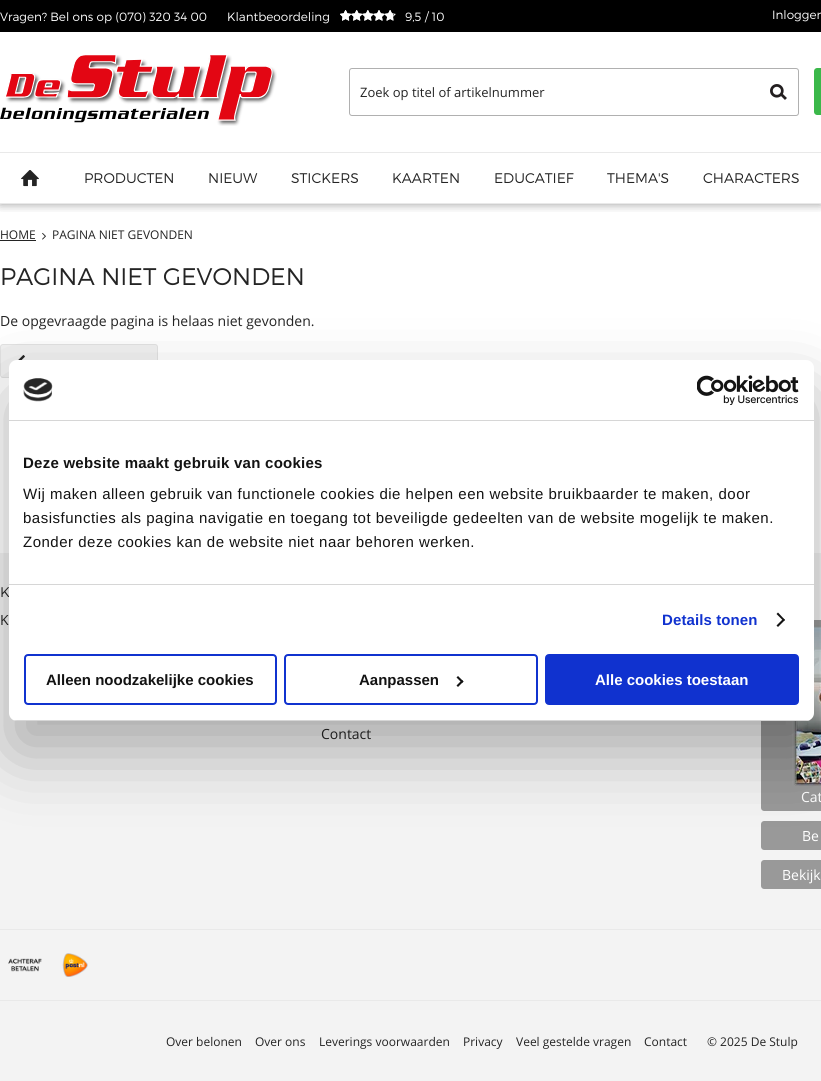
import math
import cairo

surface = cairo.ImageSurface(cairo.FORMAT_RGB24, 821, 1081)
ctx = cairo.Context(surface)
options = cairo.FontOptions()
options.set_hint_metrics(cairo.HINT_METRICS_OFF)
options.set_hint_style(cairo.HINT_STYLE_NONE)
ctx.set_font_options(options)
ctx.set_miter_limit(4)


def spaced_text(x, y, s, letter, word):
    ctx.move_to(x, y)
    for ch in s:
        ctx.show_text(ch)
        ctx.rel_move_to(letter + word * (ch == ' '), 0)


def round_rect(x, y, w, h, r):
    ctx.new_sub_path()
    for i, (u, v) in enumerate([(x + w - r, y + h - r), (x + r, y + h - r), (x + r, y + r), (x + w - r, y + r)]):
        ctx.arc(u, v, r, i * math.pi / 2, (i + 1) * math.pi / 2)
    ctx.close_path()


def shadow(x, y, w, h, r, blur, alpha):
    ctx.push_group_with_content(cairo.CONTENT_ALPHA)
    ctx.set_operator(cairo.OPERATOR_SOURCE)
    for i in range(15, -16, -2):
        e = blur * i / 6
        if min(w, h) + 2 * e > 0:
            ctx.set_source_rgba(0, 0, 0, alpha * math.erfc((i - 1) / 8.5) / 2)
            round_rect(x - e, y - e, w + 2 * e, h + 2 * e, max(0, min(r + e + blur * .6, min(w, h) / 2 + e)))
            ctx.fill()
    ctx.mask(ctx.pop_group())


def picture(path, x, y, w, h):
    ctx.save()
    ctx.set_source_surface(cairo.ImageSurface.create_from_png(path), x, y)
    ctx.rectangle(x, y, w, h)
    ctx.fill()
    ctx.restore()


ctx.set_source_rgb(1, 1, 1)
ctx.paint()
ctx.save()
ctx.rectangle(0, 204, 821, 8)
ctx.clip()
ctx.set_source_rgb(0, 0, 0)
shadow(0, 32, 821, 172, 0, 5, 0.4)
ctx.restore()
ctx.set_source_rgb(0, 0, 0)
ctx.rectangle(0, 0, 821, 32)
ctx.fill()
ctx.select_font_face("Montserrat Light")
ctx.set_font_size(12)
ctx.set_source_rgb(1, 1, 1)
ctx.move_to(0, 21)
ctx.show_text("Vragen? Bel ons op (070) 320 34 00")
ctx.move_to(227, 21)
ctx.show_text("Klantbeoordeling")
picture("img1.png", 340, 10, 56, 11)
picture("img2.png", 340, 10, 53, 11)
ctx.move_to(405, 21)
ctx.show_text("9,5 / 10")
ctx.move_to(772, 19)
ctx.show_text("Inloggen")
picture("img3.png", 0, 55, 277, 71)
round_rect(349.5, 68.5, 449, 47, 2.5)
ctx.set_source_rgb(0.69, 0.69, 0.69)
ctx.set_line_width(1)
ctx.stroke()
ctx.select_font_face("Open Sans")
ctx.set_font_size(13)
ctx.set_source_rgb(0.141, 0.141, 0.141)
ctx.move_to(360, 97)
ctx.show_text("Zoek op titel of artikelnummer")
picture("img4.png", 770, 84, 17, 16)
ctx.set_source_rgb(0.231, 0.722, 0.29)
ctx.new_path()
ctx.move_to(817, 68)
ctx.line_to(821, 68)
ctx.line_to(821, 115)
ctx.line_to(817, 115)
ctx.curve_to(815.5, 115, 814, 113.5, 814, 112)
ctx.line_to(814, 71)
ctx.curve_to(814, 69.5, 815.5, 68, 817, 68)
ctx.close_path()
ctx.fill()
ctx.set_source_rgb(0.914, 0.914, 0.914)
ctx.rectangle(0, 152, 821, 1)
ctx.fill()
ctx.rectangle(0, 203, 821, 1)
ctx.fill()
picture("img5.png", 21, 170, 18, 17)
ctx.select_font_face("Montserrat Light")
ctx.set_font_size(14)
ctx.set_source_rgb(0.141, 0.141, 0.141)
ctx.move_to(84, 183)
ctx.show_text("PRODUCTEN")
ctx.move_to(208, 183)
ctx.show_text("NIEUW")
ctx.move_to(291, 183)
ctx.show_text("STICKERS")
ctx.move_to(392, 183)
ctx.show_text("KAARTEN")
ctx.move_to(494, 183)
ctx.show_text("EDUCATIEF")
ctx.move_to(607, 183)
ctx.show_text("THEMA'S")
ctx.move_to(703, 183)
ctx.show_text("CHARACTERS")
ctx.select_font_face("Open Sans")
ctx.set_font_size(12)
ctx.move_to(0, 239)
ctx.show_text("HOME")
ctx.rectangle(0, 240, 36, 1)
ctx.fill()
picture("img6.png", 42, 232, 4, 8)
ctx.move_to(52, 239)
ctx.show_text("PAGINA NIET GEVONDEN")
ctx.select_font_face("Montserrat Light")
ctx.set_font_size(24)
ctx.move_to(0, 285)
ctx.show_text("PAGINA NIET GEVONDEN")
ctx.select_font_face("Open Sans")
ctx.set_font_size(14)
ctx.move_to(0, 326)
ctx.show_text("De opgevraagde pagina is helaas niet gevonden.")
ctx.set_source_rgb(0.941, 0.941, 0.941)
round_rect(0.5, 344.5, 157, 33, 2.5)
ctx.fill_preserve()
ctx.set_source_rgb(0.886, 0.886, 0.886)
ctx.stroke()
picture("img7.png", 18, 355, 7, 5)
ctx.set_source_rgb(0.953, 0.953, 0.953)
ctx.rectangle(0, 553, 821, 528)
ctx.fill()
ctx.select_font_face("Montserrat Light")
ctx.set_source_rgb(0.141, 0.141, 0.141)
ctx.move_to(0, 597)
ctx.show_text("K")
ctx.select_font_face("Open Sans")
ctx.move_to(0, 625)
ctx.show_text("K")
ctx.move_to(321, 739)
ctx.show_text("Contact")
ctx.set_source_rgb(0.6, 0.6, 0.6)
ctx.new_path()
ctx.move_to(764, 620)
ctx.line_to(821, 620)
ctx.line_to(821, 811)
ctx.line_to(764, 811)
ctx.curve_to(762.5, 811, 761, 809.5, 761, 808)
ctx.line_to(761, 623)
ctx.curve_to(761, 621.5, 762.5, 620, 764, 620)
ctx.close_path()
ctx.fill()
picture("img8.png", 792, 625, 29, 161)
ctx.set_source_rgb(1, 1, 1)
ctx.move_to(801, 802)
ctx.show_text("Cat")
ctx.set_source_rgb(0.6, 0.6, 0.6)
ctx.new_path()
ctx.move_to(764, 821)
ctx.line_to(821, 821)
ctx.line_to(821, 850)
ctx.line_to(764, 850)
ctx.curve_to(762.5, 850, 761, 848.5, 761, 847)
ctx.line_to(761, 824)
ctx.curve_to(761, 822.5, 762.5, 821, 764, 821)
ctx.close_path()
ctx.fill()
ctx.set_source_rgb(1, 1, 1)
ctx.move_to(802, 841)
ctx.show_text("Be")
ctx.set_source_rgb(0.6, 0.6, 0.6)
ctx.new_path()
ctx.move_to(764, 860)
ctx.line_to(821, 860)
ctx.line_to(821, 889)
ctx.line_to(764, 889)
ctx.curve_to(762.5, 889, 761, 887.5, 761, 886)
ctx.line_to(761, 863)
ctx.curve_to(761, 861.5, 762.5, 860, 764, 860)
ctx.close_path()
ctx.fill()
ctx.set_source_rgb(1, 1, 1)
ctx.move_to(782, 880)
ctx.show_text("Bekijk")
ctx.set_source_rgb(0.914, 0.914, 0.914)
ctx.rectangle(0, 929, 821, 1)
ctx.fill()
ctx.rectangle(0, 1000, 821, 1)
ctx.fill()
picture("img9.png", 8, 958, 34, 14)
picture("img10.png", 62, 953, 26, 24)
ctx.set_font_size(12)
ctx.set_source_rgb(0.141, 0.141, 0.141)
ctx.move_to(166, 1046)
ctx.show_text("Over belonen")
ctx.move_to(255, 1046)
ctx.show_text("Over ons")
ctx.move_to(319, 1046)
ctx.show_text("Leverings voorwaarden")
ctx.move_to(463, 1046)
ctx.show_text("Privacy")
ctx.move_to(516, 1046)
ctx.show_text("Veel gestelde vragen")
ctx.move_to(644, 1046)
ctx.show_text("Contact")
ctx.move_to(707, 1046)
ctx.show_text("© 2025 De Stulp")
ctx.set_source_rgb(0, 0, 0)
shadow(9, 392, 805, 361, 8, 34, 0.3)
ctx.set_source_rgb(1, 1, 1)
round_rect(9, 360, 805, 361, 8)
ctx.fill()
ctx.set_source_rgb(0.839, 0.839, 0.839)
ctx.rectangle(9, 420, 805, 1)
ctx.fill()
picture("img11.png", 23, 378, 30, 24)
picture("img12.png", 697, 375, 102, 30)
ctx.rectangle(9, 584, 805, 1)
ctx.fill()
ctx.select_font_face("Liberation Sans", cairo.FONT_SLANT_NORMAL, cairo.FONT_WEIGHT_BOLD)
ctx.set_font_size(15)
ctx.set_source_rgb(0.078, 0.078, 0.078)
spaced_text(23, 468, "Deze website maakt gebruik van cookies", 0.25, 0)
ctx.select_font_face("Liberation Sans")
spaced_text(23, 499, "Wij maken alleen gebruik van functionele cookies die helpen een website bruikbaarder te maken, door", 0.5, 0)
spaced_text(23, 523, "basisfuncties als pagina navigatie en toegang tot beveiligde gedeelten van de website mogelijk te maken.", 0.5, 0)
spaced_text(23, 547, "Zonder deze cookies kan de website niet naar behoren werken.", 0.5, 0)
ctx.select_font_face("Liberation Sans", cairo.FONT_SLANT_NORMAL, cairo.FONT_WEIGHT_BOLD)
ctx.set_source_rgb(0.063, 0.196, 0.812)
spaced_text(662, 625, "Details tonen", 0.1, 0)
ctx.set_source_rgb(0.078, 0.078, 0.078)
ctx.new_path()
ctx.move_to(778, 612.5)
ctx.line_to(785, 620)
ctx.line_to(783.5, 621)
ctx.line_to(776.5, 614)
ctx.close_path()
ctx.fill()
ctx.new_path()
ctx.move_to(783.5, 618.5)
ctx.line_to(785, 620)
ctx.line_to(778, 627)
ctx.line_to(776.5, 625.5)
ctx.close_path()
ctx.fill()
ctx.save()
round_rect(9, 360, 805, 361, 8)
ctx.clip()
ctx.set_source_rgb(0.839, 0.839, 0.839)
ctx.rectangle(9, 720, 805, 1)
ctx.fill()
ctx.restore()
round_rect(25, 655, 251, 49, 3)
ctx.set_source_rgb(0.063, 0.196, 0.812)
ctx.set_line_width(2)
ctx.stroke()
ctx.set_source_rgb(0.078, 0.078, 0.078)
ctx.move_to(46, 685)
ctx.show_text("Alleen noodzakelijke cookies")
round_rect(285, 655, 252, 49, 3)
ctx.set_source_rgb(0.063, 0.196, 0.812)
ctx.stroke()
ctx.set_source_rgb(0.078, 0.078, 0.078)
ctx.move_to(359, 685)
ctx.show_text("Aanpassen")
ctx.new_path()
ctx.move_to(458, 676)
ctx.line_to(463.5, 681.5)
ctx.line_to(462, 683)
ctx.line_to(456.5, 677.5)
ctx.close_path()
ctx.fill()
ctx.new_path()
ctx.move_to(462, 680)
ctx.line_to(463.5, 681.5)
ctx.line_to(458, 687)
ctx.line_to(456.5, 685.5)
ctx.close_path()
ctx.fill()
ctx.set_source_rgb(0.063, 0.196, 0.812)
round_rect(546, 655, 252, 49, 3)
ctx.fill_preserve()
ctx.stroke()
ctx.set_source_rgb(1, 1, 1)
ctx.move_to(595, 685)
ctx.show_text("Alle cookies toestaan")
surface.write_to_png("page.png")
